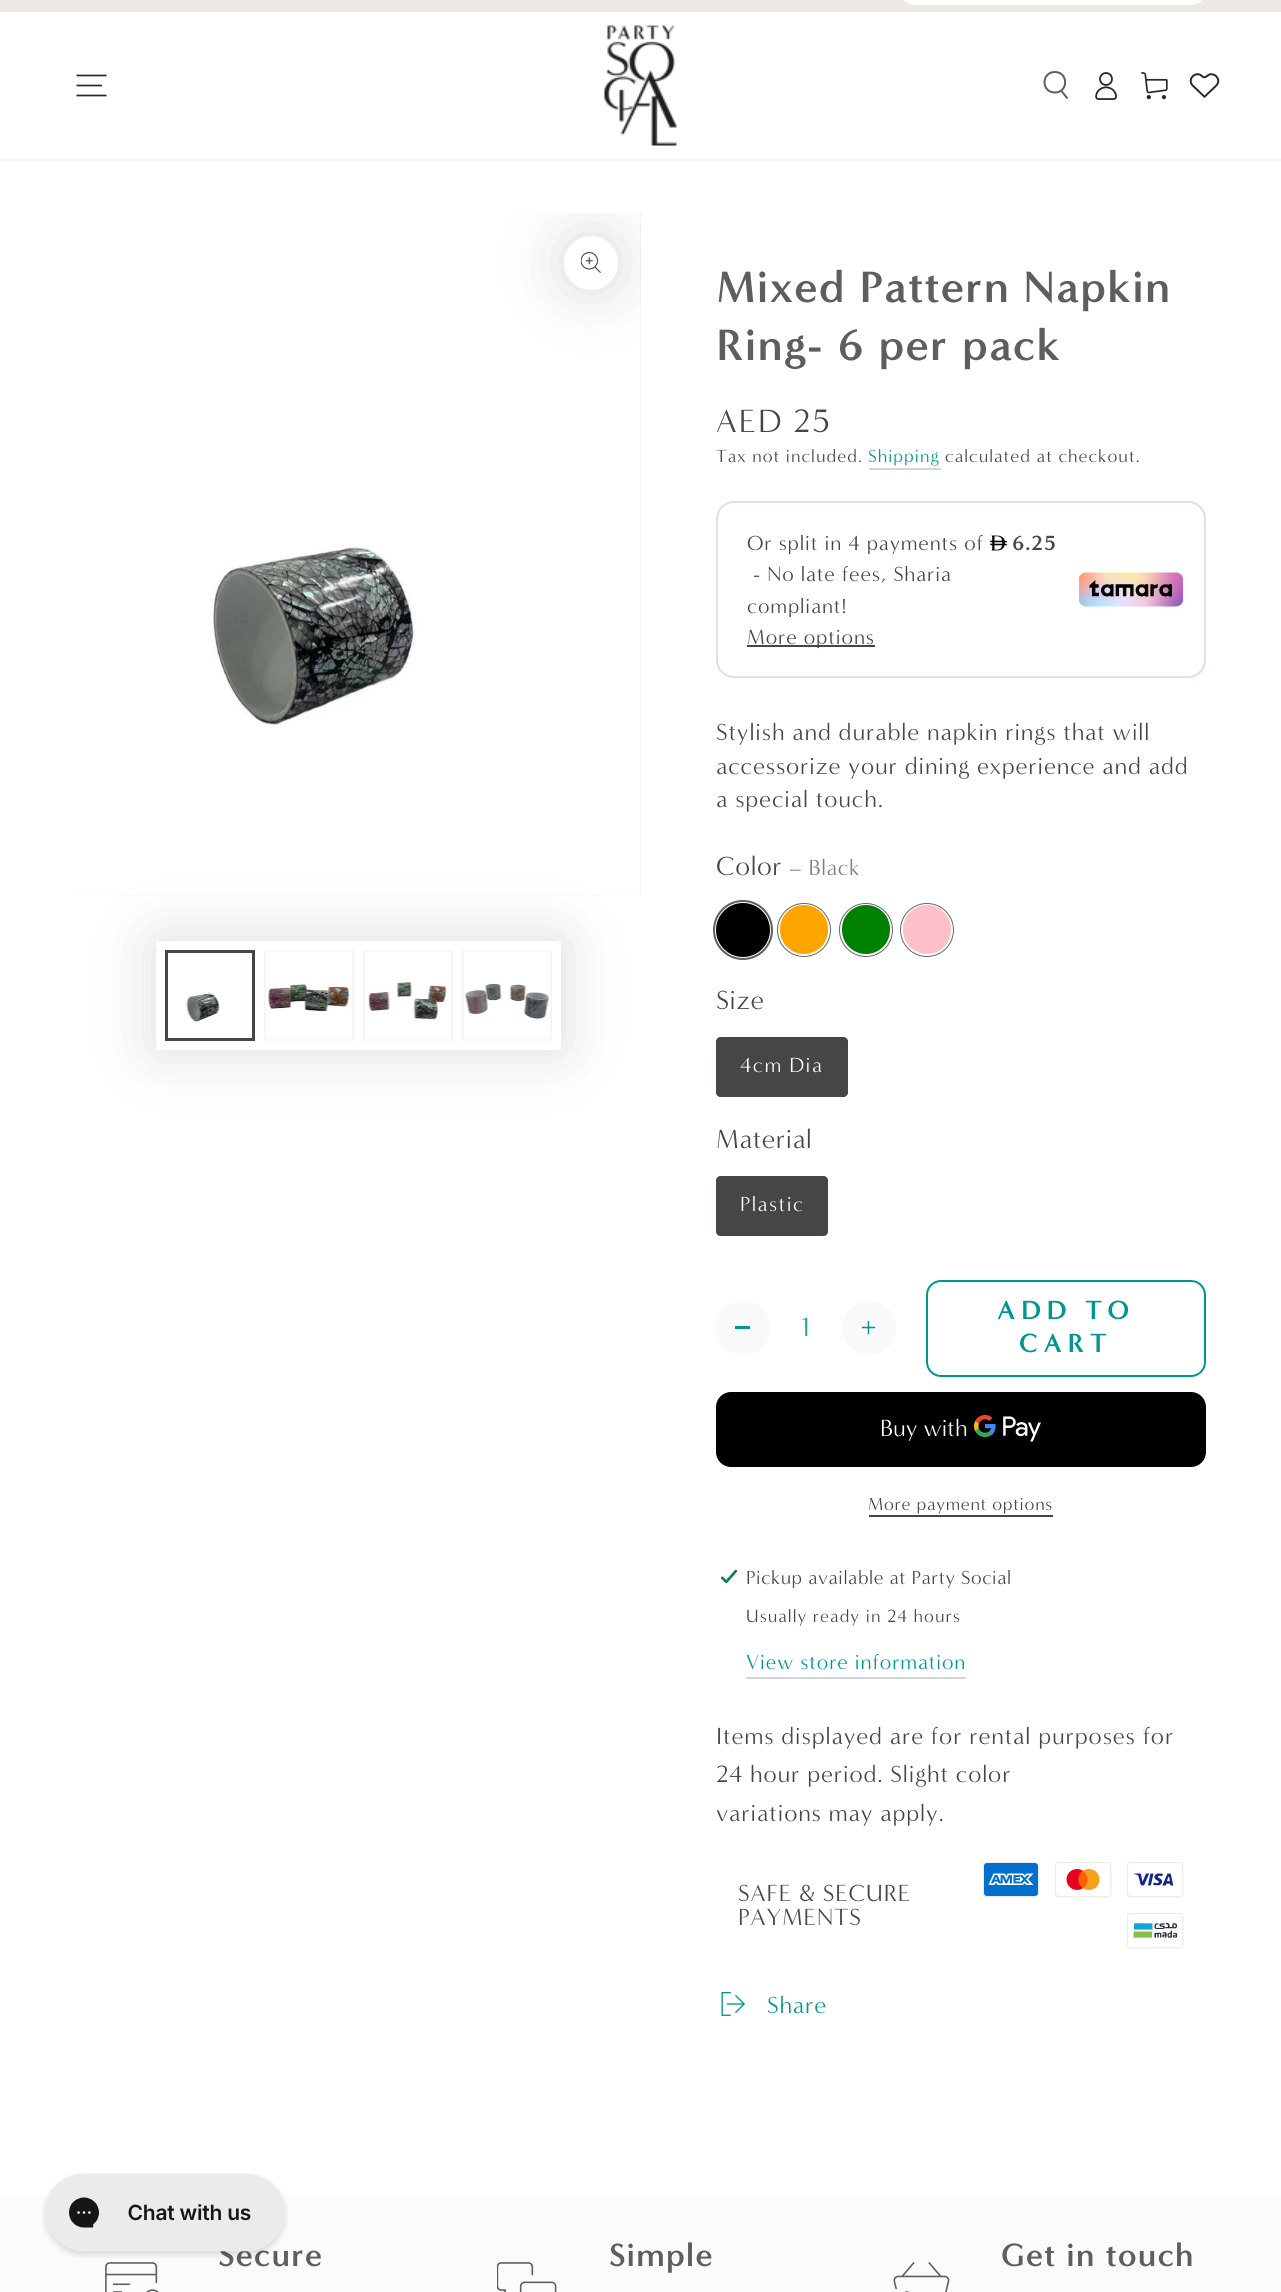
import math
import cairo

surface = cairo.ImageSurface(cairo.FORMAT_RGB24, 1281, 2292)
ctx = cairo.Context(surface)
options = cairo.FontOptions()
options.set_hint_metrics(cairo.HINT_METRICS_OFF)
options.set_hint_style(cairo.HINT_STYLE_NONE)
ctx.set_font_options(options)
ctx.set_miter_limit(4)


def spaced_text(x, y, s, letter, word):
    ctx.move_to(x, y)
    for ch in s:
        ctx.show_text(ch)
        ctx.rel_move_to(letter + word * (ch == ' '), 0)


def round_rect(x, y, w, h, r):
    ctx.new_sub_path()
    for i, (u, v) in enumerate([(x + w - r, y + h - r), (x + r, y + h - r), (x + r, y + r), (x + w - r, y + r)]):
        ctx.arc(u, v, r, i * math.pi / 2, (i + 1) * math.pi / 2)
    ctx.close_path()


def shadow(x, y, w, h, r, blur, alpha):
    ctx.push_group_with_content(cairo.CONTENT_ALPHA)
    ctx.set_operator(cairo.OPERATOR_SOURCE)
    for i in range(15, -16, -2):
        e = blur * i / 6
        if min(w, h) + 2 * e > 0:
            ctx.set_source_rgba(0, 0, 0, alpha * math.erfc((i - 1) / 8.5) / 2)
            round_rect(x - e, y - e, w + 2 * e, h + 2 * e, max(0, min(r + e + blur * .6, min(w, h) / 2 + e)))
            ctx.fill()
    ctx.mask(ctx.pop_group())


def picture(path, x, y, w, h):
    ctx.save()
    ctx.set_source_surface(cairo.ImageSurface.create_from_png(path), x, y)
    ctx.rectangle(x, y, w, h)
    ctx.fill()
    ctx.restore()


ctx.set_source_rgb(1, 1, 1)
ctx.paint()
ctx.set_source_rgb(0.992, 0.984, 0.973)
ctx.rectangle(0, 2196, 1281, 96)
ctx.fill()
ctx.select_font_face("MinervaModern", cairo.FONT_SLANT_NORMAL, cairo.FONT_WEIGHT_BOLD)
ctx.set_font_size(33)
ctx.set_source_rgb(0.369, 0.369, 0.369)
spaced_text(218, 2266, "Secure", 0.9, 0)
picture("img1.png", 42, 2173, 246, 85)
ctx.set_source_rgb(0.925, 0.914, 0.89)
ctx.rectangle(0, 0, 1281, 12)
ctx.fill()
ctx.set_source_rgb(1, 1, 1)
round_rect(899, -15, 307, 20, 15)
ctx.fill()
ctx.set_source_rgb(0.961, 0.961, 0.961)
ctx.rectangle(75, 213, 566, 683)
ctx.fill()
picture("img7.png", 75, 213, 565, 683)
ctx.save()
ctx.rectangle(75, 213, 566, 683)
ctx.clip()
ctx.set_source_rgb(0.278, 0.271, 0.271)
shadow(564, 236, 54, 54, 27, 30, 0.2)
ctx.restore()
ctx.set_source_rgb(0.949, 0.949, 0.957)
ctx.rectangle(0, 159, 1281, 2)
ctx.fill()
ctx.new_path()
ctx.move_to(76.5, 95.5)
ctx.line_to(106.5, 95.5)
ctx.move_to(76.5, 85.5)
ctx.line_to(102, 85.5)
ctx.move_to(76.5, 75.5)
ctx.line_to(106.5, 75.5)
ctx.set_source_rgb(0.157, 0.157, 0.157)
ctx.set_line_width(1.7)
ctx.stroke()
picture("img2.png", 604, 25, 73, 121)
ctx.new_path()
ctx.move_to(1055, 92.5)
ctx.curve_to(1068.5, 92.5, 1068.5, 72, 1055, 72)
ctx.curve_to(1041, 72, 1041, 92.5, 1055, 92.5)
ctx.close_path()
ctx.move_to(1061, 90.5)
ctx.line_to(1067.5, 98.5)
ctx.set_source_rgb(0.369, 0.369, 0.369)
ctx.set_line_width(2)
ctx.stroke()
picture("img3.png", 1095, 72, 22, 28)
picture("img4.png", 1141, 72, 27, 28)
picture("img5.png", 1189, 73, 31, 25)
ctx.set_source_rgb(1, 1, 1)
ctx.arc(591, 263, 27, 0, 2 * math.pi)
ctx.fill()
picture("img6.png", 581, 252, 20, 21)
ctx.save()
ctx.set_fill_rule(cairo.FILL_RULE_EVEN_ODD)
ctx.new_path()
ctx.move_to(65, 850)
ctx.line_to(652, 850)
ctx.line_to(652, 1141)
ctx.line_to(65, 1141)
ctx.close_path()
ctx.move_to(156, 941)
ctx.line_to(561, 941)
ctx.line_to(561, 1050)
ctx.line_to(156, 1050)
ctx.close_path()
ctx.clip()
ctx.set_source_rgb(0.278, 0.271, 0.271)
shadow(156, 941, 405, 109, 0, 30, 0.2)
ctx.restore()
picture("img8.png", 168, 953, 84, 85)
ctx.rectangle(166.5, 951.5, 87, 88)
ctx.set_source_rgb(0.278, 0.271, 0.271)
ctx.set_line_width(3)
ctx.stroke()
ctx.set_source_rgb(0.961, 0.961, 0.961)
ctx.rectangle(264, 950, 90, 91)
ctx.fill()
picture("img9.png", 264, 950, 90, 91)
ctx.rectangle(265, 951, 88, 89)
ctx.set_source_rgba(0.278, 0.271, 0.271, 0.04)
ctx.set_line_width(2)
ctx.stroke()
ctx.set_source_rgb(0.961, 0.961, 0.961)
ctx.rectangle(363, 950, 90, 91)
ctx.fill()
picture("img10.png", 363, 950, 90, 91)
ctx.rectangle(364, 951, 88, 89)
ctx.set_source_rgba(0.278, 0.271, 0.271, 0.04)
ctx.stroke()
ctx.set_source_rgb(0.961, 0.961, 0.961)
ctx.rectangle(462, 950, 90, 91)
ctx.fill()
picture("img11.png", 462, 950, 90, 91)
ctx.rectangle(463, 951, 88, 89)
ctx.set_source_rgba(0.278, 0.271, 0.271, 0.04)
ctx.stroke()
ctx.set_font_size(45)
ctx.set_source_rgb(0.369, 0.369, 0.369)
spaced_text(716, 302, "Mixed Pattern Napkin", 0.9, 0)
spaced_text(716, 360, "Ring- 6 per pack", 0.9, 0)
ctx.select_font_face("MinervaModern")
ctx.set_font_size(33)
ctx.set_source_rgb(0.278, 0.271, 0.271)
spaced_text(716, 432, "AED 25", 2, 0)
ctx.set_font_size(18)
spaced_text(716, 462, "Tax not included.", 1.05, 0)
ctx.set_source_rgb(0, 0.588, 0.561)
spaced_text(868, 462, "Shipping", 1.05, 0)
ctx.set_source_rgb(0.824, 0.835, 0.851)
ctx.rectangle(869, 468, 72, 2)
ctx.fill()
ctx.set_source_rgb(0.278, 0.271, 0.271)
spaced_text(945, 462, "calculated at checkout.", 1.05, 0)
round_rect(717, 502, 488, 175, 17)
ctx.set_source_rgb(0.855, 0.878, 0.922)
ctx.stroke()
ctx.set_font_size(21)
ctx.set_source_rgb(0.278, 0.271, 0.271)
spaced_text(747, 550, "Or split in 4 payments of", 0.9, 0)
picture("img12.png", 990, 535, 18, 16)
ctx.select_font_face("MinervaModern", cairo.FONT_SLANT_NORMAL, cairo.FONT_WEIGHT_BOLD)
spaced_text(1012, 550, "6.25", 0.9, 0)
ctx.select_font_face("MinervaModern")
spaced_text(753, 581, "- No late fees, Sharia", 0.9, 0)
spaced_text(747, 613, "compliant!", 0.9, 0)
ctx.rectangle(747, 645, 128, 2)
ctx.fill()
spaced_text(747, 644, "More options", 0.9, 0)
picture("img13.png", 1079, 572, 104, 35)
ctx.set_font_size(24)
spaced_text(716, 740, "Stylish and durable napkin rings that will", 0.9, 0)
spaced_text(716, 774, "accessorize your dining experience and add", 0.9, 0)
spaced_text(716, 807, "a special touch.", 0.9, 0)
ctx.set_font_size(27)
spaced_text(716, 875, "Color", 0.6, 0)
ctx.set_font_size(22.5)
ctx.set_source_rgb(0.494, 0.49, 0.49)
spaced_text(789, 875, "– Black", 0.6, 0)
ctx.set_source_rgb(0, 0, 0)
ctx.new_path()
ctx.arc(743, 930, 27, 0, 2 * math.pi)
ctx.fill()
ctx.arc(743, 930, 29, 0, 2 * math.pi)
ctx.set_source_rgb(0.369, 0.369, 0.369)
ctx.stroke()
ctx.set_source_rgb(1, 0.647, 0)
round_rect(780, 905, 48, 49, 24)
ctx.fill()
ctx.arc(804, 930, 26.5, 0, 2 * math.pi)
ctx.set_source_rgb(0.404, 0.404, 0.404)
ctx.set_line_width(1)
ctx.stroke()
ctx.set_source_rgb(0, 0.502, 0)
round_rect(842, 905, 48, 49, 24)
ctx.fill()
ctx.arc(866, 930, 26.5, 0, 2 * math.pi)
ctx.set_source_rgb(0.404, 0.404, 0.404)
ctx.stroke()
ctx.set_source_rgb(1, 0.753, 0.796)
round_rect(903, 905, 48, 49, 24)
ctx.fill()
ctx.arc(927, 930, 26.5, 0, 2 * math.pi)
ctx.set_source_rgb(0.404, 0.404, 0.404)
ctx.stroke()
ctx.set_font_size(27)
ctx.set_source_rgb(0.278, 0.271, 0.271)
spaced_text(716, 1009, "Size", 0.6, 0)
round_rect(717.5, 1038.5, 129, 57, 3.5)
ctx.set_line_width(3)
ctx.stroke()
round_rect(716, 1037, 132, 60, 5)
ctx.fill()
ctx.set_font_size(21)
ctx.set_source_rgb(1, 1, 1)
spaced_text(740, 1072, "4cm Dia", 1.5, 0)
ctx.set_font_size(27)
ctx.set_source_rgb(0.278, 0.271, 0.271)
spaced_text(716, 1148, "Material", 0.6, 0)
round_rect(717.5, 1177.5, 109, 57, 3.5)
ctx.stroke()
round_rect(716, 1176, 112, 60, 5)
ctx.fill()
ctx.set_font_size(21)
ctx.set_source_rgb(1, 1, 1)
spaced_text(740, 1211, "Plastic", 1.5, 0)
ctx.set_source_rgb(0.976, 0.976, 0.976)
ctx.new_path()
ctx.arc(743, 1328, 27, 0, 2 * math.pi)
ctx.fill()
ctx.set_source_rgb(0, 0.588, 0.561)
ctx.rectangle(735, 1326, 15, 3)
ctx.fill()
ctx.set_font_size(27)
ctx.set_source_rgb(0.149, 0.651, 0.627)
ctx.move_to(801, 1336)
ctx.show_text("1")
ctx.set_source_rgb(0.976, 0.976, 0.976)
ctx.new_path()
ctx.arc(869, 1328, 27, 0, 2 * math.pi)
ctx.fill()
picture("img14.png", 861, 1320, 15, 15)
round_rect(927, 1281, 278, 95, 14)
ctx.set_source_rgb(0, 0.588, 0.561)
ctx.set_line_width(2)
ctx.stroke()
ctx.select_font_face("MinervaModern", cairo.FONT_SLANT_NORMAL, cairo.FONT_WEIGHT_BOLD)
spaced_text(997, 1319, "ADD TO", 5.5, 0)
spaced_text(1019, 1352, "CART", 5.5, 0)
ctx.set_source_rgb(0, 0, 0)
round_rect(716, 1392, 490, 75, 15)
ctx.fill()
ctx.select_font_face("MinervaModern")
ctx.set_font_size(24)
ctx.set_source_rgb(1, 1, 1)
ctx.move_to(880, 1436)
ctx.show_text("Buy with")
picture("img15.png", 974, 1415, 67, 27)
ctx.set_font_size(18)
ctx.set_source_rgb(0.278, 0.271, 0.271)
spaced_text(868, 1510, "More payment options", 0.75, 0)
ctx.rectangle(869, 1515, 184, 2)
ctx.fill()
picture("img16.png", 720, 1569, 18, 15)
ctx.set_font_size(19.5)
spaced_text(746, 1584, "Pickup available at Party Social", 0.6, 0)
ctx.set_font_size(18)
spaced_text(746, 1622, "Usually ready in 24 hours", 1.05, 0)
ctx.set_source_rgb(0.824, 0.835, 0.851)
ctx.rectangle(746, 1677, 220, 2)
ctx.fill()
ctx.set_font_size(21)
ctx.set_source_rgb(0, 0.588, 0.561)
spaced_text(746, 1669, "View store information", 0.9, 0)
ctx.set_font_size(24)
ctx.set_source_rgb(0.278, 0.271, 0.271)
spaced_text(716, 1744, "Items displayed are for rental purposes for", 0.9, 0)
spaced_text(716, 1782, "24 hour period. Slight color", 0.9, 0)
spaced_text(716, 1821, "variations may apply.", 0.9, 0)
spaced_text(738, 1901, "SAFE & SECURE", 0.9, 0)
spaced_text(738, 1925, "PAYMENTS", 0.9, 0)
picture("img17.png", 983, 1862, 57, 36)
picture("img18.png", 1055, 1862, 57, 36)
picture("img19.png", 1127, 1862, 57, 36)
picture("img20.png", 1127, 1913, 57, 36)
picture("img21.png", 721, 1992, 24, 24)
ctx.set_source_rgb(0, 0.588, 0.561)
spaced_text(767, 2013, "Share", 0.9, 0)
picture("img22.png", 105, 2262, 54, 30)
ctx.select_font_face("MinervaModern", cairo.FONT_SLANT_NORMAL, cairo.FONT_WEIGHT_BOLD)
ctx.set_font_size(33)
ctx.set_source_rgb(0.369, 0.369, 0.369)
spaced_text(609, 2266, "Simple", 0.9, 0)
picture("img23.png", 497, 2262, 60, 30)
spaced_text(1001, 2266, "Get in touch", 0.9, 0)
picture("img24.png", 893, 2262, 57, 30)
surface.write_to_png("page.png")
